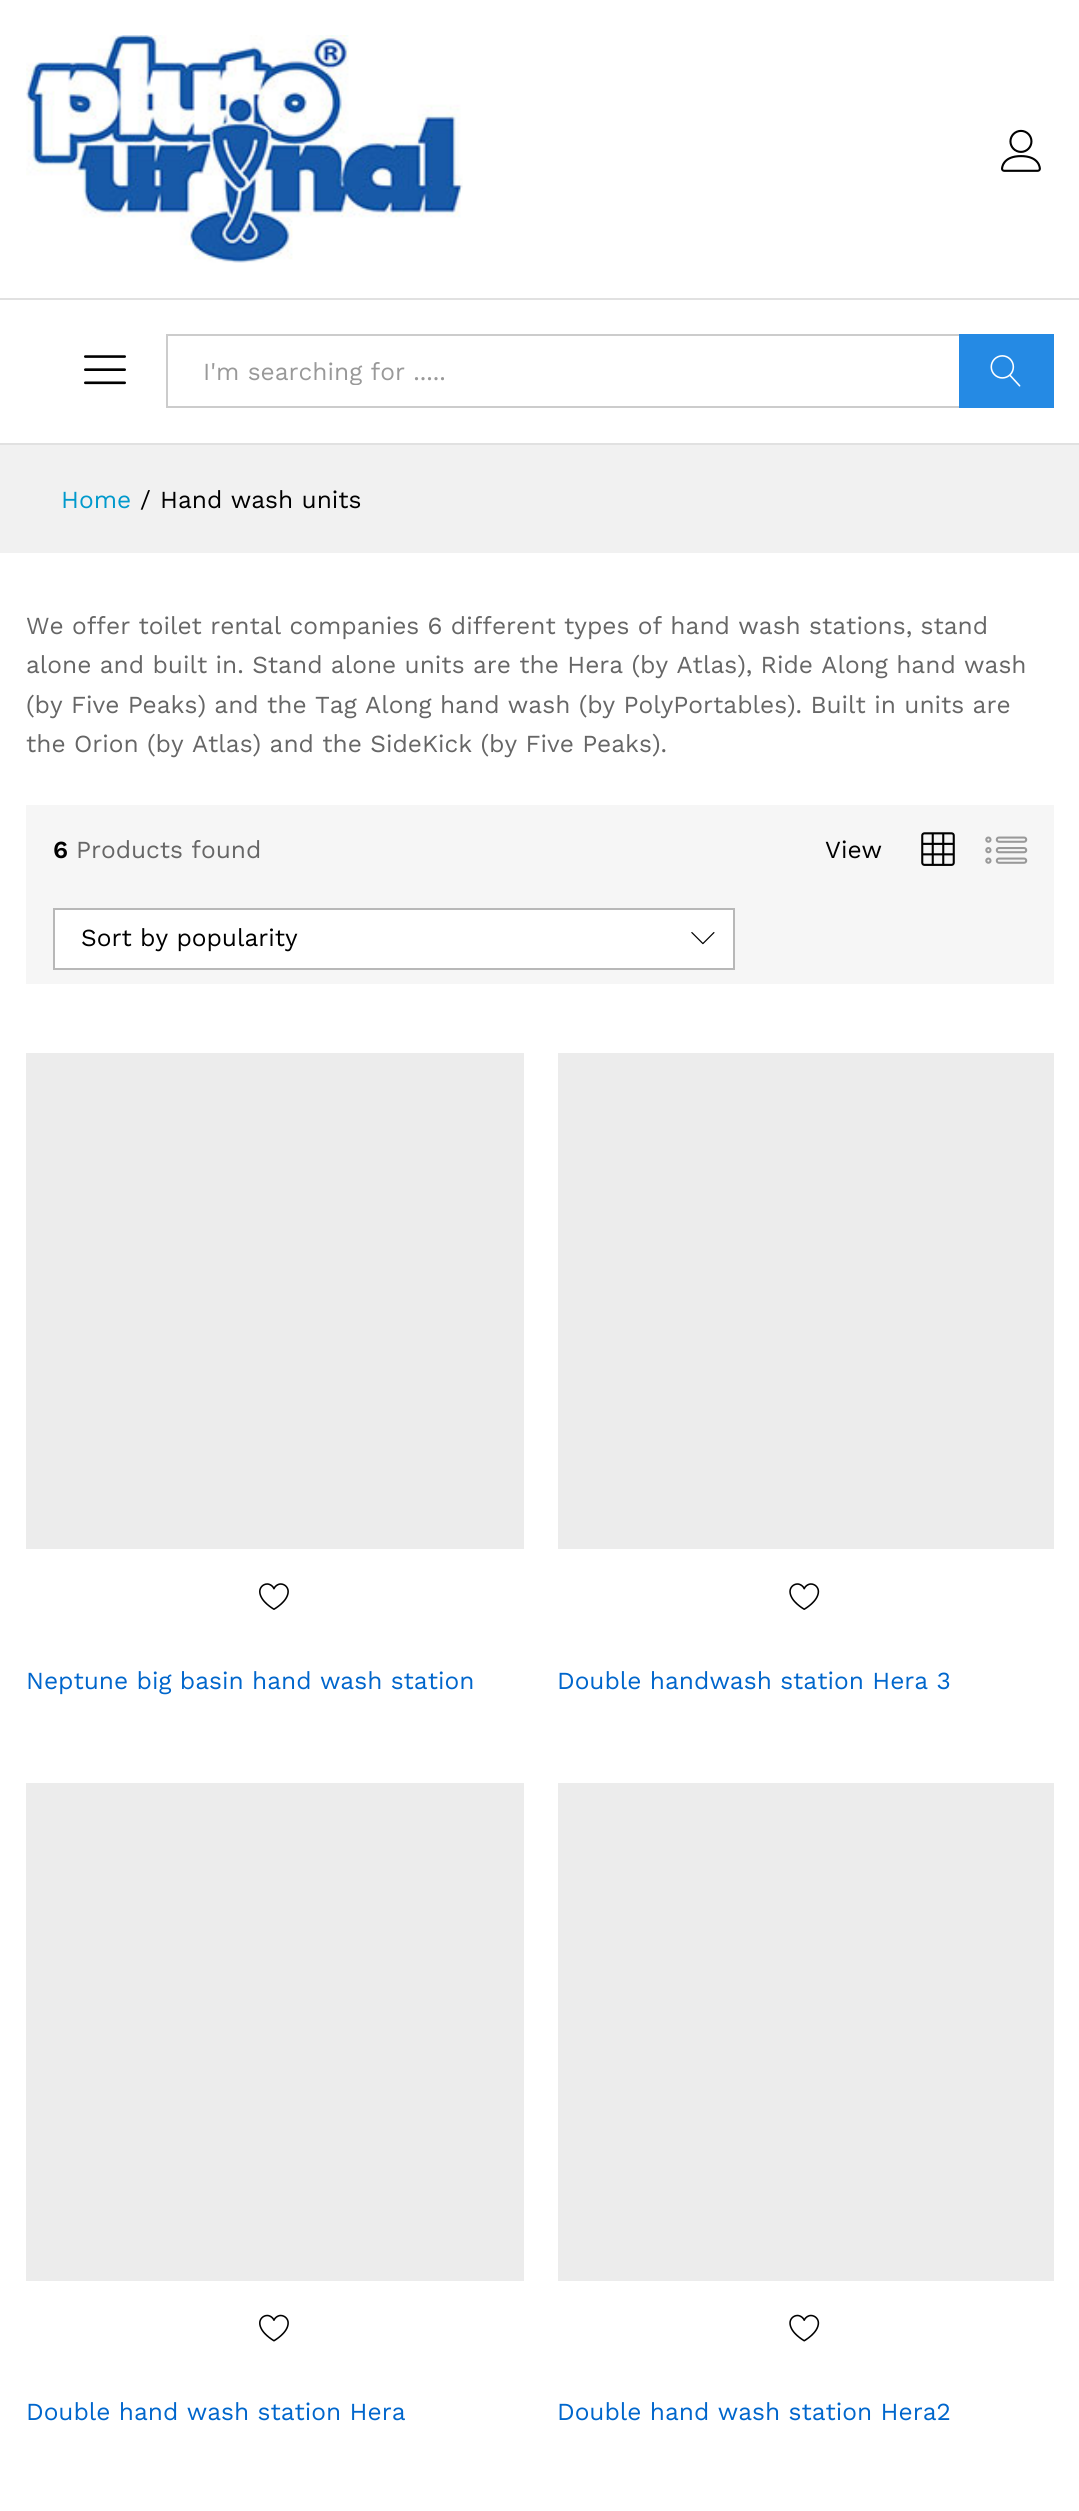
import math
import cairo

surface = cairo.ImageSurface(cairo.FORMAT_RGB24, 1079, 2511)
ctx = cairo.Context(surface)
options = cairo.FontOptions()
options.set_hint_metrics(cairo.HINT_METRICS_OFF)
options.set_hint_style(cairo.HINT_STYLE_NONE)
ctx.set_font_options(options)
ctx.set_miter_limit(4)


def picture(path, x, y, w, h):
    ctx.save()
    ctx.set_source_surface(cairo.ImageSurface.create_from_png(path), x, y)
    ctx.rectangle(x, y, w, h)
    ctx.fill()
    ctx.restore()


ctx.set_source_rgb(1, 1, 1)
ctx.paint()
picture("img1.png", 26, 35, 437, 228)
picture("img2.png", 1001, 129, 40, 43)
ctx.set_source_rgb(0.882, 0.882, 0.882)
ctx.rectangle(0, 298, 1079, 2)
ctx.fill()
ctx.rectangle(0, 443, 1079, 2)
ctx.fill()
picture("img3.png", 84, 355, 42, 30)
ctx.set_source_rgb(0.8, 0.8, 0.8)
ctx.rectangle(166, 334, 2, 74)
ctx.fill()
ctx.rectangle(168, 334, 791, 2)
ctx.fill()
ctx.rectangle(168, 406, 791, 2)
ctx.fill()
ctx.save()
ctx.rectangle(203, 357, 721, 28)
ctx.clip()
ctx.select_font_face("Work Sans")
ctx.set_font_size(24.5)
ctx.set_source_rgb(0.6, 0.6, 0.6)
ctx.move_to(203, 380)
ctx.show_text("I'm searching for .....")
ctx.restore()
ctx.set_source_rgb(0.145, 0.541, 0.894)
ctx.rectangle(959, 334, 95, 74)
ctx.fill()
picture("img4.png", 990, 355, 31, 32)
ctx.set_source_rgb(0.945, 0.945, 0.945)
ctx.rectangle(0, 445, 1079, 108)
ctx.fill()
ctx.select_font_face("Work Sans")
ctx.set_font_size(24.5)
ctx.set_source_rgb(0, 0.6, 0.8)
ctx.move_to(61, 508)
ctx.show_text("Home")
ctx.set_source_rgb(0, 0, 0)
ctx.move_to(140, 508)
ctx.show_text("/")
ctx.move_to(160, 508)
ctx.show_text("Hand wash units")
ctx.set_source_rgb(0.4, 0.4, 0.4)
ctx.move_to(26, 634)
ctx.show_text("We offer toilet rental companies 6 different types of hand wash stations, stand")
ctx.move_to(26, 673)
ctx.show_text("alone and built in. Stand alone units are the Hera (by Atlas), Ride Along hand wash")
ctx.move_to(26, 713)
ctx.show_text("(by Five Peaks) and the Tag Along hand wash (by PolyPortables). Built in units are")
ctx.move_to(26, 752)
ctx.show_text("the Orion (by Atlas) and the SideKick (by Five Peaks).")
ctx.set_source_rgb(0.961, 0.961, 0.961)
ctx.rectangle(26, 805, 1028, 179)
ctx.fill()
ctx.select_font_face("Work Sans SemiBold")
ctx.set_source_rgb(0, 0, 0)
ctx.move_to(53, 858)
ctx.show_text("6")
ctx.select_font_face("Work Sans")
ctx.set_source_rgb(0.4, 0.4, 0.4)
ctx.move_to(76, 858)
ctx.show_text("Products found")
ctx.set_source_rgb(0, 0, 0)
ctx.move_to(825, 858)
ctx.show_text("View")
picture("img5.png", 921, 832, 34, 34)
picture("img6.png", 985, 836, 43, 28)
ctx.set_source_rgb(1, 1, 1)
ctx.rectangle(54, 909, 680, 60)
ctx.fill_preserve()
ctx.set_source_rgb(0.722, 0.722, 0.722)
ctx.stroke()
ctx.set_source_rgb(0, 0, 0)
ctx.move_to(81, 946)
ctx.show_text("Sort by popularity")
picture("img7.png", 691, 932, 24, 13)
ctx.set_source_rgb(0.925, 0.925, 0.925)
ctx.rectangle(26, 1053, 498, 496)
ctx.fill()
picture("img8.png", 259, 1583, 30, 27)
ctx.set_source_rgb(0, 0.4, 0.8)
ctx.move_to(26, 1689)
ctx.show_text("Neptune big basin hand wash station")
ctx.set_source_rgb(0.925, 0.925, 0.925)
ctx.rectangle(558, 1053, 496, 496)
ctx.fill()
picture("img9.png", 789, 1583, 31, 27)
ctx.set_source_rgb(0, 0.4, 0.8)
ctx.move_to(557, 1689)
ctx.show_text("Double handwash station Hera 3")
ctx.set_source_rgb(0.925, 0.925, 0.925)
ctx.rectangle(26, 1783, 498, 498)
ctx.fill()
picture("img10.png", 259, 2314, 30, 28)
ctx.set_source_rgb(0, 0.4, 0.8)
ctx.move_to(26, 2420)
ctx.show_text("Double hand wash station Hera")
ctx.set_source_rgb(0.925, 0.925, 0.925)
ctx.rectangle(558, 1783, 496, 498)
ctx.fill()
picture("img11.png", 789, 2314, 31, 28)
ctx.set_source_rgb(0, 0.4, 0.8)
ctx.move_to(557, 2420)
ctx.show_text("Double hand wash station Hera2")
surface.write_to_png("page.png")
